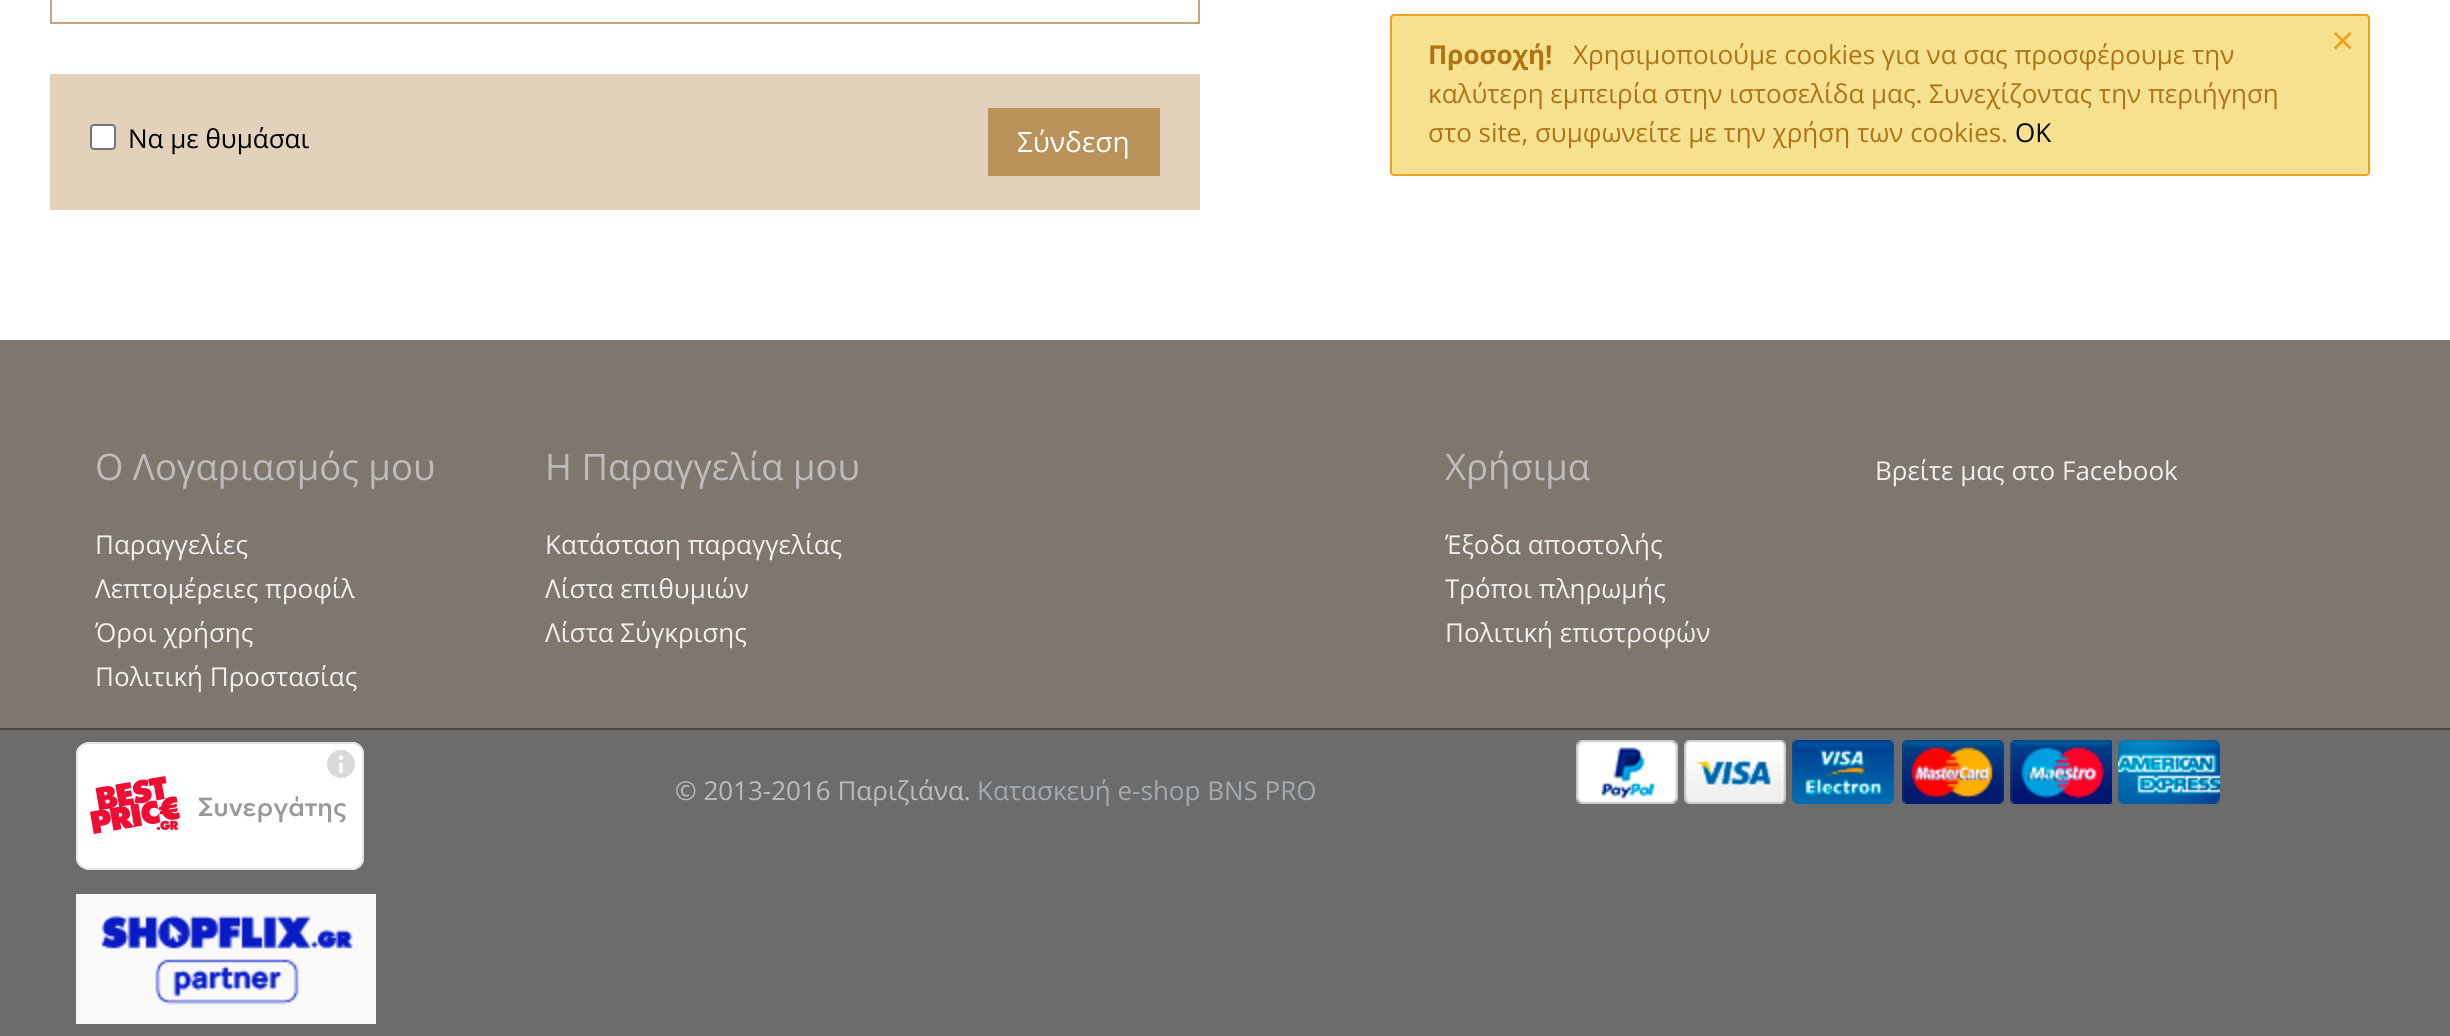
import math
import cairo

surface = cairo.ImageSurface(cairo.FORMAT_RGB24, 2450, 1036)
ctx = cairo.Context(surface)
options = cairo.FontOptions()
options.set_hint_metrics(cairo.HINT_METRICS_OFF)
options.set_hint_style(cairo.HINT_STYLE_NONE)
ctx.set_font_options(options)
ctx.set_miter_limit(4)


def round_rect(x, y, w, h, r):
    ctx.new_sub_path()
    for i, (u, v) in enumerate([(x + w - r, y + h - r), (x + r, y + h - r), (x + r, y + r), (x + w - r, y + r)]):
        ctx.arc(u, v, r, i * math.pi / 2, (i + 1) * math.pi / 2)
    ctx.close_path()


def picture(path, x, y, w, h):
    ctx.save()
    ctx.set_source_surface(cairo.ImageSurface.create_from_png(path), x, y)
    ctx.rectangle(x, y, w, h)
    ctx.fill()
    ctx.restore()


ctx.set_source_rgb(1, 1, 1)
ctx.paint()
ctx.set_source_rgb(0.961, 0.882, 0.569)
round_rect(1391, 15, 978, 160, 3)
ctx.fill_preserve()
ctx.set_source_rgb(0.953, 0.627, 0.106)
ctx.stroke()
ctx.select_font_face("Liberation Sans")
ctx.set_font_size(40)
ctx.move_to(2331, 54)
ctx.show_text("×")
ctx.select_font_face("Open Sans", cairo.FONT_SLANT_NORMAL, cairo.FONT_WEIGHT_BOLD)
ctx.set_font_size(26)
ctx.set_source_rgb(0.686, 0.455, 0.082)
ctx.move_to(1428, 64)
ctx.show_text("Προσοχή!")
ctx.select_font_face("Open Sans")
ctx.move_to(1573, 64)
ctx.show_text("Χρησιμοποιούμε cookies για να σας προσφέρουμε την")
ctx.move_to(1428, 103)
ctx.show_text("καλύτερη εμπειρία στην ιστοσελίδα μας. Συνεχίζοντας την περιήγηση")
ctx.move_to(1428, 142)
ctx.show_text("στο site, συμφωνείτε με την χρήση των cookies.")
ctx.set_source_rgb(0.039, 0.039, 0.039)
ctx.move_to(2015, 142)
ctx.show_text("OK")
ctx.rectangle(51, -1, 1148, 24)
ctx.set_source_rgb(0.78, 0.647, 0.482)
ctx.stroke()
ctx.set_source_rgb(0.89, 0.82, 0.737)
ctx.rectangle(50, 74, 1150, 136)
ctx.fill()
ctx.set_source_rgb(1, 1, 1)
round_rect(91, 125, 24, 24, 3)
ctx.fill_preserve()
ctx.set_source_rgb(0.463, 0.463, 0.463)
ctx.stroke()
ctx.set_source_rgb(0, 0, 0)
ctx.move_to(128, 148)
ctx.show_text("Να με θυμάσαι")
ctx.set_source_rgb(0.729, 0.576, 0.361)
ctx.rectangle(988, 108, 172, 68)
ctx.fill()
ctx.set_font_size(28)
ctx.set_source_rgb(1, 1, 1)
ctx.move_to(1017, 152)
ctx.show_text("Σύνδεση")
ctx.set_source_rgb(0.498, 0.463, 0.431)
ctx.rectangle(0, 340, 2450, 388)
ctx.fill()
ctx.set_source_rgb(0.282, 0.282, 0.282)
ctx.rectangle(0, 728, 2450, 2)
ctx.fill()
ctx.set_font_size(36.5)
ctx.set_source_rgb(0.737, 0.737, 0.737)
ctx.move_to(95, 480)
ctx.show_text("Ο Λογαριασμός μου")
ctx.set_font_size(26)
ctx.set_source_rgb(0.937, 0.937, 0.937)
ctx.move_to(95, 554)
ctx.show_text("Παραγγελίες")
ctx.move_to(95, 598)
ctx.show_text("Λεπτομέρειες προφίλ")
ctx.move_to(95, 642)
ctx.show_text("Όροι χρήσης")
ctx.move_to(95, 686)
ctx.show_text("Πολιτική Προστασίας")
ctx.set_font_size(36.5)
ctx.set_source_rgb(0.737, 0.737, 0.737)
ctx.move_to(545, 480)
ctx.show_text("Η Παραγγελία μου")
ctx.set_font_size(26)
ctx.set_source_rgb(0.937, 0.937, 0.937)
ctx.move_to(545, 554)
ctx.show_text("Κατάσταση παραγγελίας")
ctx.move_to(545, 598)
ctx.show_text("Λίστα επιθυμιών")
ctx.move_to(545, 642)
ctx.show_text("Λίστα Σύγκρισης")
ctx.set_font_size(36.5)
ctx.set_source_rgb(0.737, 0.737, 0.737)
ctx.move_to(1445, 480)
ctx.show_text("Χρήσιμα")
ctx.set_font_size(26)
ctx.set_source_rgb(0.937, 0.937, 0.937)
ctx.move_to(1445, 554)
ctx.show_text("Έξοδα αποστολής")
ctx.move_to(1445, 598)
ctx.show_text("Τρόποι πληρωμής")
ctx.move_to(1445, 642)
ctx.show_text("Πολιτική επιστροφών")
ctx.move_to(1875, 480)
ctx.show_text("Βρείτε μας στο Facebook")
ctx.set_source_rgb(0.424, 0.424, 0.424)
ctx.rectangle(0, 730, 2450, 306)
ctx.fill()
picture("img1.png", 76, 742, 288, 128)
picture("img2.png", 76, 894, 300, 130)
ctx.set_source_rgb(0.737, 0.737, 0.737)
ctx.move_to(675, 800)
ctx.show_text("© 2013-2016 Παριζιάνα.")
ctx.set_source_rgb(0.639, 0.667, 0.686)
ctx.move_to(977, 800)
ctx.show_text("Κατασκευή e-shop BNS PRO")
picture("img3.png", 1576, 740, 102, 64)
picture("img4.png", 1684, 740, 102, 64)
picture("img5.png", 1792, 740, 102, 64)
picture("img6.png", 1902, 740, 102, 64)
picture("img7.png", 2010, 740, 102, 64)
picture("img8.png", 2118, 740, 102, 64)
surface.write_to_png("page.png")
